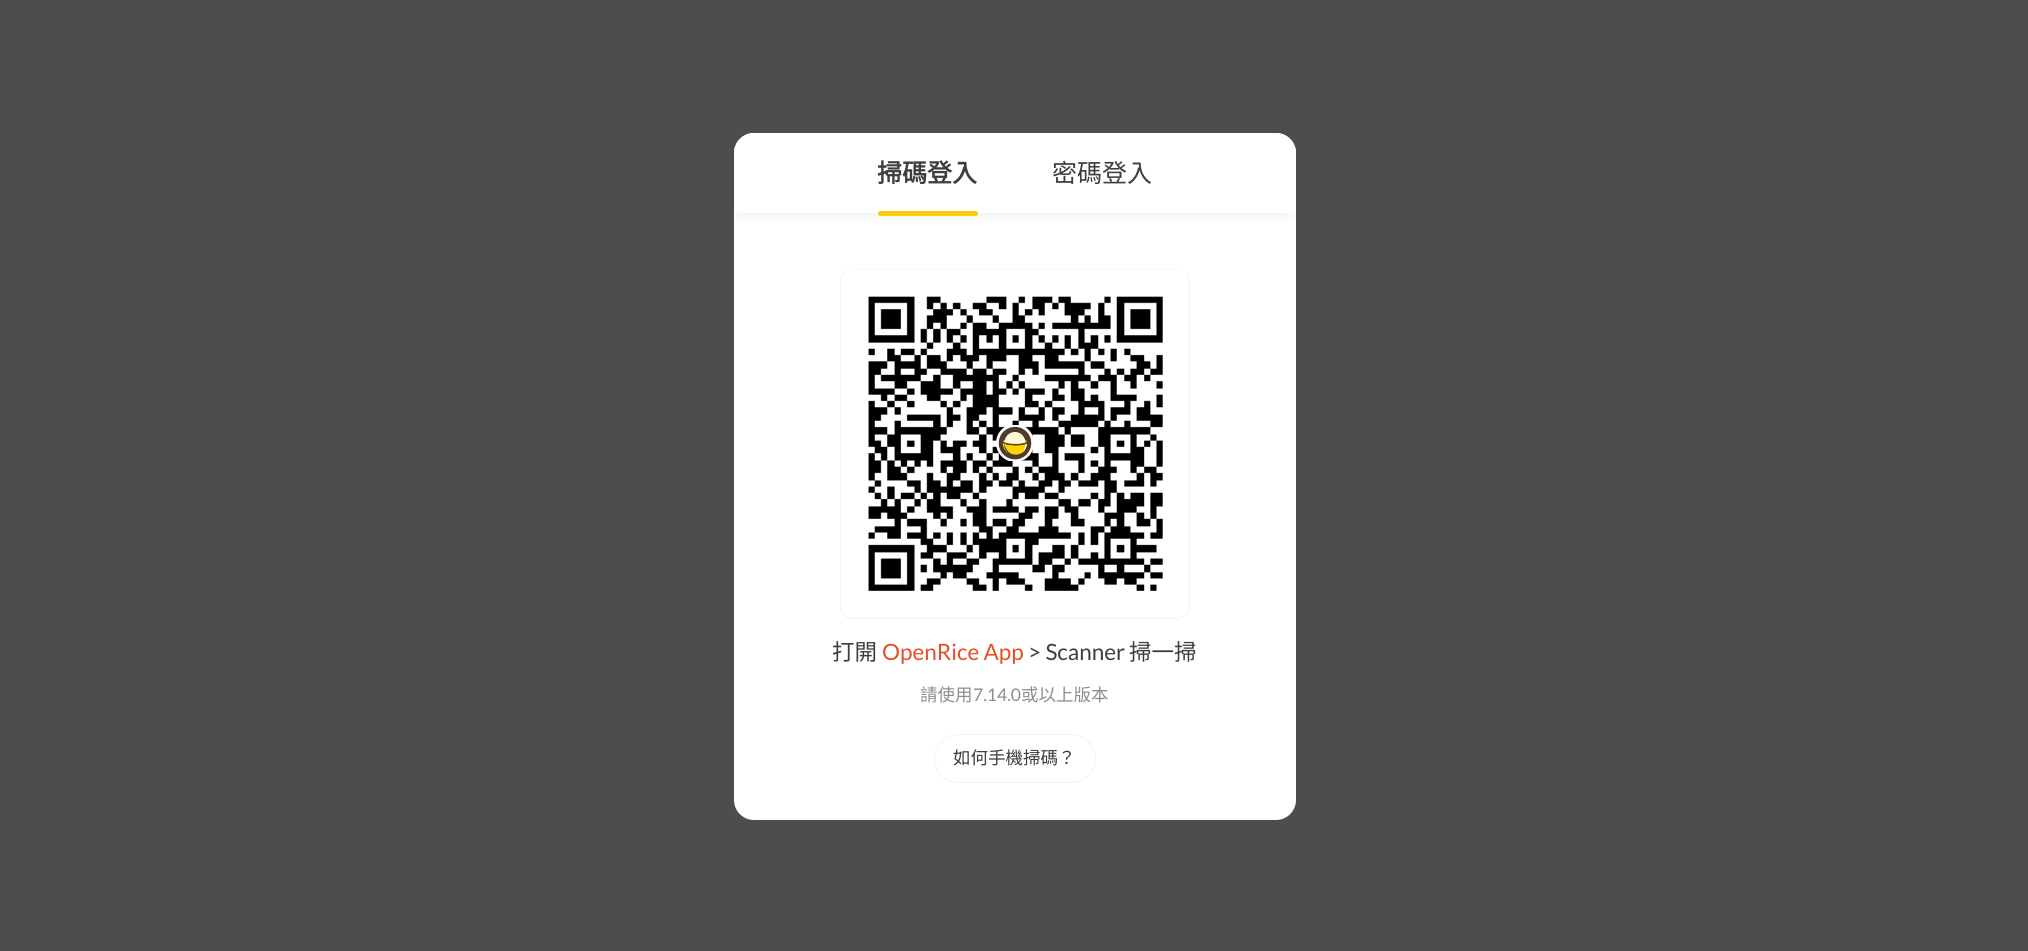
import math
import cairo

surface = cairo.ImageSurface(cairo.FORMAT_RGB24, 2028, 951)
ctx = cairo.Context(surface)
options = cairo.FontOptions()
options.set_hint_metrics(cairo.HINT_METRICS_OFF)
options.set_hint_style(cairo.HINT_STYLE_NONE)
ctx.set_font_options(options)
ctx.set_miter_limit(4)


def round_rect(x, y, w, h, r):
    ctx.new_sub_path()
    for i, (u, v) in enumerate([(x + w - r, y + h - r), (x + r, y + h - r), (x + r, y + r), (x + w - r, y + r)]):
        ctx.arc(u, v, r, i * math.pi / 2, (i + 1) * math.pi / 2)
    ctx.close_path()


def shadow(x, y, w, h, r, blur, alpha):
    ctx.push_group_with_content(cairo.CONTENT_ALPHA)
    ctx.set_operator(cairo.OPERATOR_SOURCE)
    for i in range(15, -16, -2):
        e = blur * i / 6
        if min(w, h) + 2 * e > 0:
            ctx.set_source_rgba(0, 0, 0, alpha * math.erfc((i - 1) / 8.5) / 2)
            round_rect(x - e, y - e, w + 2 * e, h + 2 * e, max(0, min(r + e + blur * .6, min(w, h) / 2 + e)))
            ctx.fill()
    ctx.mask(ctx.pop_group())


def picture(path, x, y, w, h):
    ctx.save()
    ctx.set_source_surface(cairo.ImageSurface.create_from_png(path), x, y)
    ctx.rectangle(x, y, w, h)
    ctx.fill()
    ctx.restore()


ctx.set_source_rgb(0.302, 0.302, 0.302)
ctx.paint()
ctx.set_source_rgb(1, 1, 1)
round_rect(734, 133, 562, 687, 20)
ctx.fill()
ctx.set_source_rgb(0, 0, 0)
shadow(740, 145, 550, 68, 0, 6, 0.1)
ctx.set_source_rgb(1, 1, 1)
ctx.new_path()
ctx.move_to(754, 133)
ctx.line_to(1276, 133)
ctx.curve_to(1287, 133, 1296, 142, 1296, 153)
ctx.line_to(1296, 213)
ctx.line_to(734, 213)
ctx.line_to(734, 153)
ctx.curve_to(734, 142, 743, 133, 754, 133)
ctx.close_path()
ctx.fill()
ctx.select_font_face("Noto Sans CJK HK", cairo.FONT_SLANT_NORMAL, cairo.FONT_WEIGHT_BOLD)
ctx.set_font_size(25)
ctx.set_source_rgb(0.243, 0.243, 0.243)
ctx.move_to(877, 182)
ctx.show_text("掃碼登入")
ctx.set_source_rgb(1, 0.796, 0.02)
round_rect(878, 211, 100, 5, 2.5)
ctx.fill()
ctx.select_font_face("Noto Sans CJK HK")
ctx.set_source_rgb(0.243, 0.243, 0.243)
ctx.move_to(1052, 182)
ctx.show_text("密碼登入")
round_rect(840.5, 269.5, 349, 349, 12.5)
ctx.set_source_rgb(0.949, 0.949, 0.949)
ctx.set_line_width(1)
ctx.stroke()
picture("img1.png", 842, 269, 346, 322)
picture("img2.png", 996, 425, 37, 36)
ctx.set_font_size(22.5)
ctx.set_source_rgb(0.243, 0.243, 0.243)
ctx.move_to(832, 660)
ctx.show_text("打開")
ctx.select_font_face("Lato")
ctx.set_source_rgb(0.898, 0.306, 0.149)
ctx.move_to(882, 660)
ctx.show_text("OpenRice App")
ctx.set_source_rgb(0.243, 0.243, 0.243)
ctx.move_to(1028, 660)
ctx.show_text("> Scanner")
ctx.select_font_face("Noto Sans CJK HK")
ctx.move_to(1129, 660)
ctx.show_text("掃一掃")
ctx.set_font_size(17.5)
ctx.set_source_rgb(0.557, 0.557, 0.557)
ctx.move_to(920, 701)
ctx.show_text("請使用")
ctx.select_font_face("Lato")
ctx.move_to(973, 701)
ctx.show_text("7.14.0")
ctx.select_font_face("Noto Sans CJK HK")
ctx.move_to(1021, 701)
ctx.show_text("或以上版本")
round_rect(934.5, 734.5, 161, 48, 24)
ctx.set_source_rgb(0.949, 0.949, 0.949)
ctx.stroke()
ctx.set_source_rgb(0.243, 0.243, 0.243)
ctx.move_to(953, 764)
ctx.show_text("如何手機掃碼？")
surface.write_to_png("page.png")
